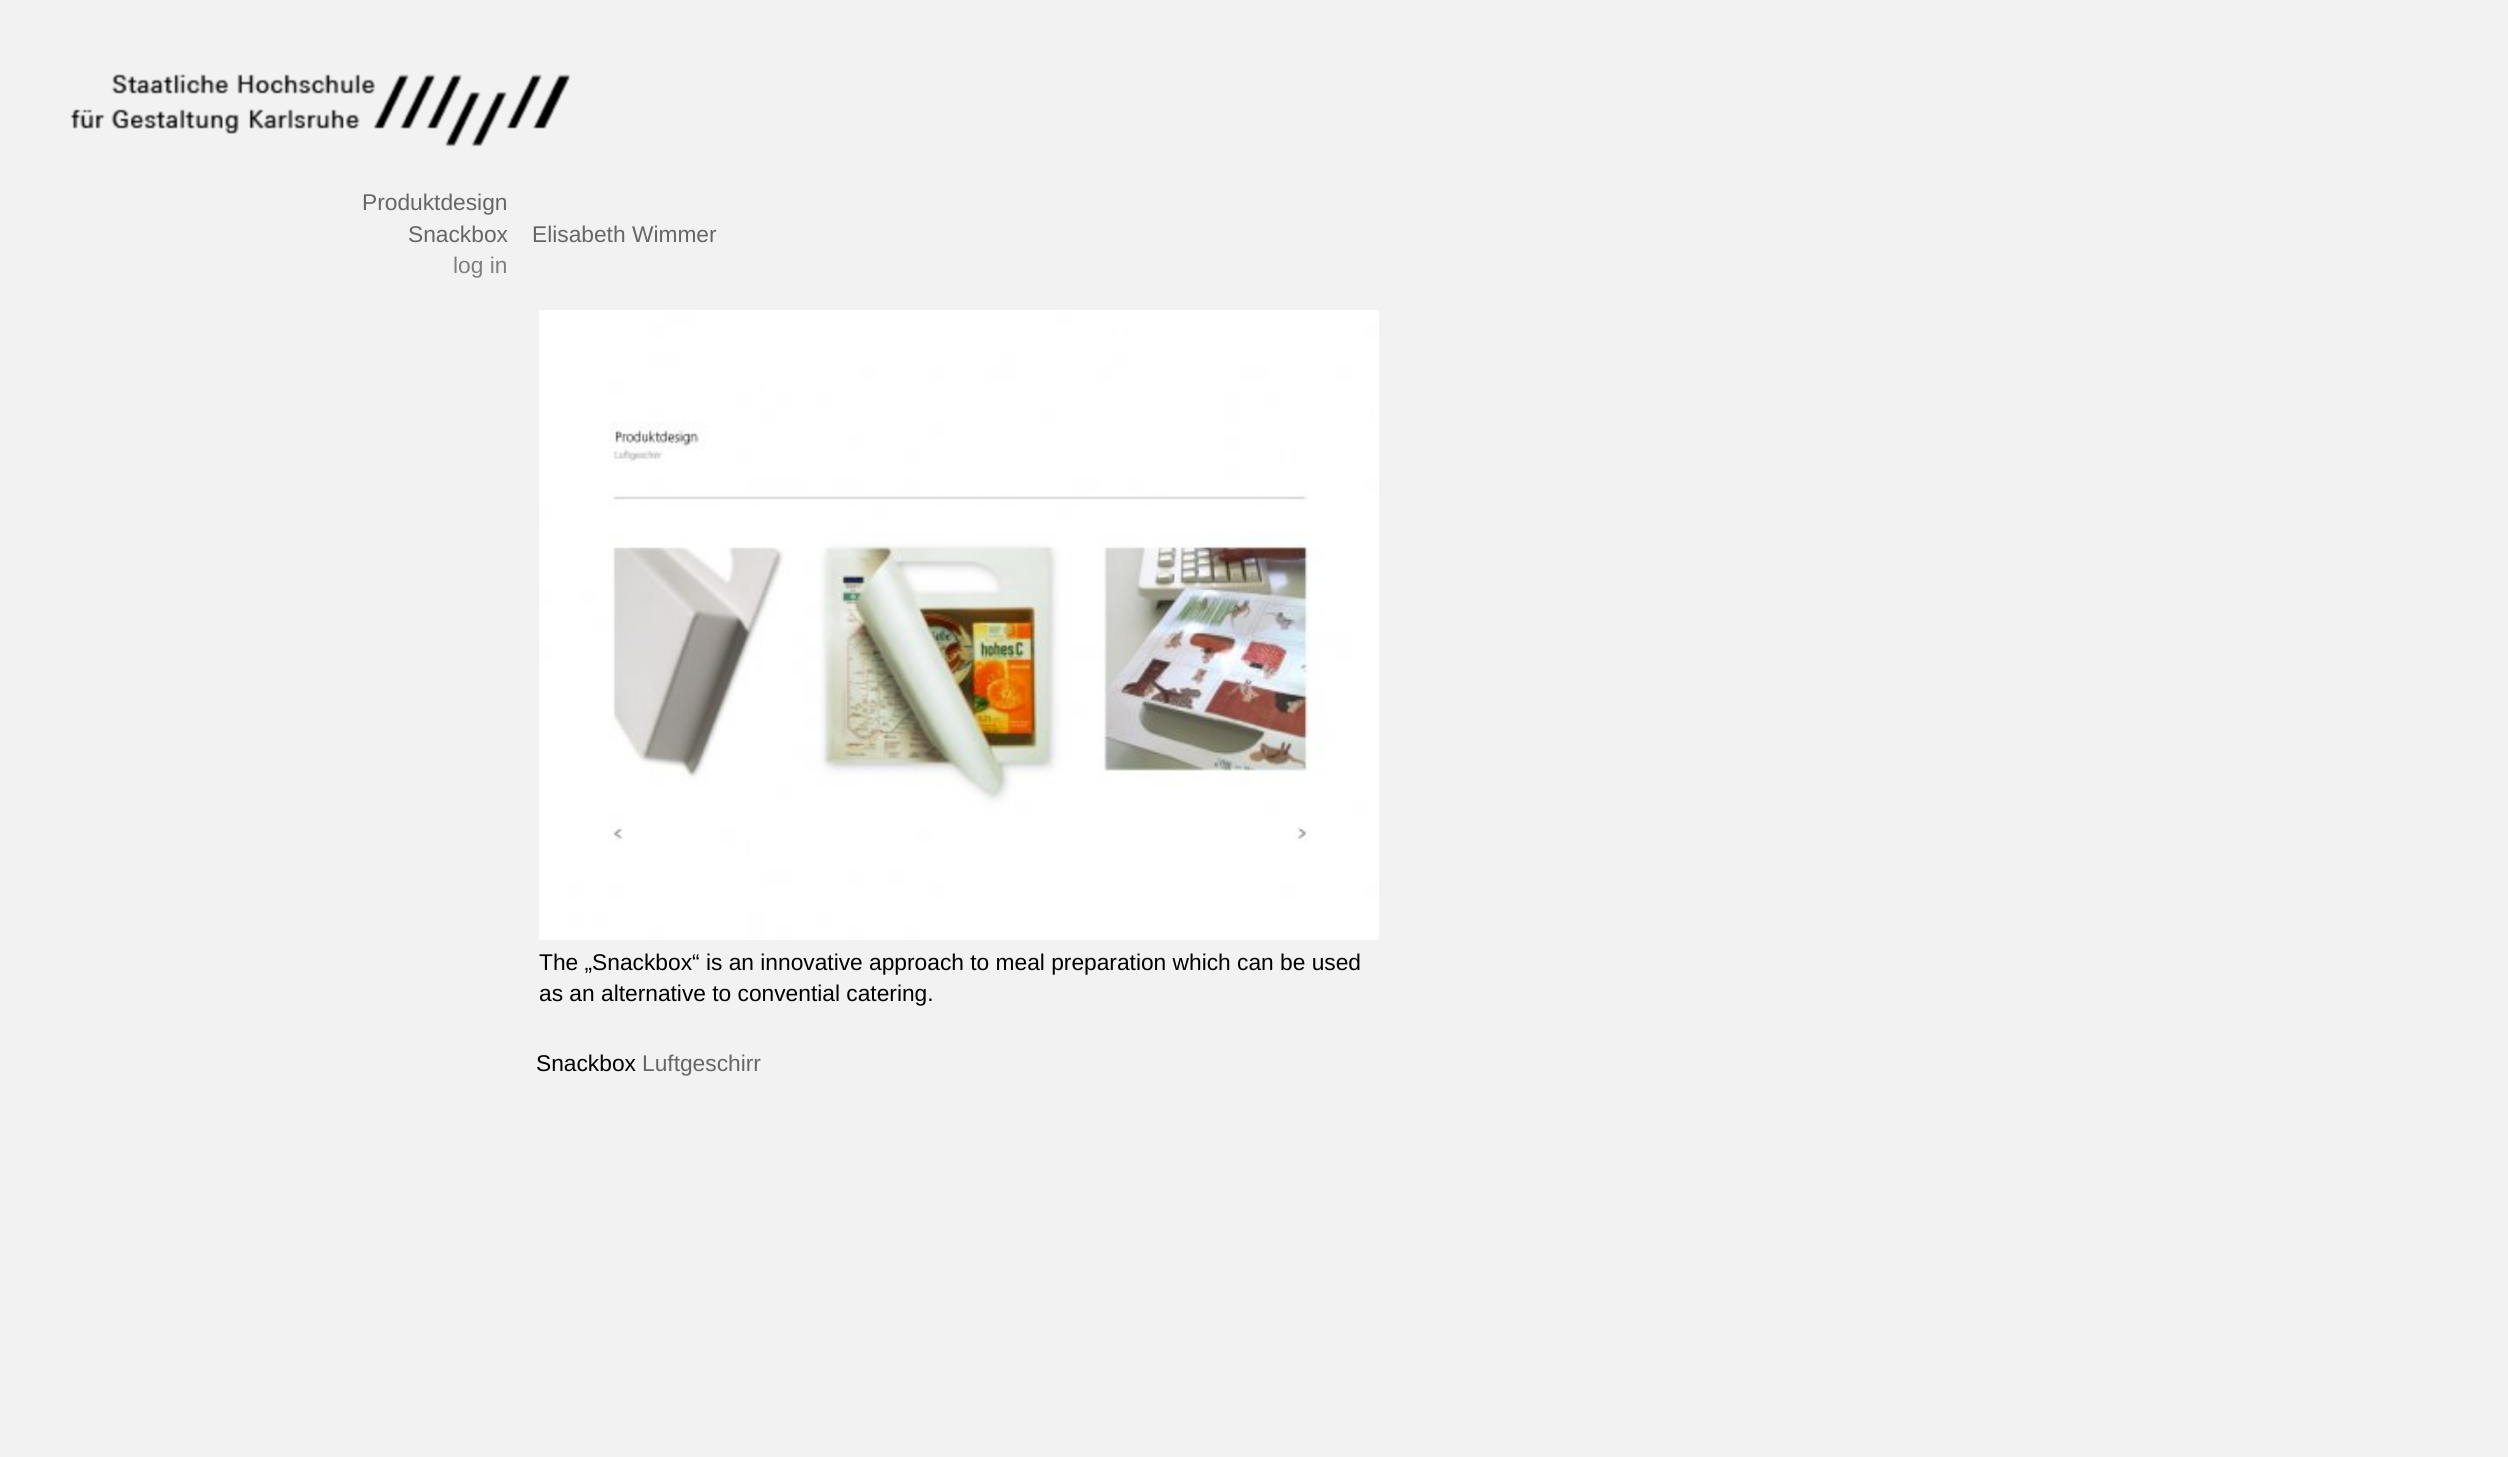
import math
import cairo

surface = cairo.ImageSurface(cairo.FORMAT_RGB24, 2508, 1457)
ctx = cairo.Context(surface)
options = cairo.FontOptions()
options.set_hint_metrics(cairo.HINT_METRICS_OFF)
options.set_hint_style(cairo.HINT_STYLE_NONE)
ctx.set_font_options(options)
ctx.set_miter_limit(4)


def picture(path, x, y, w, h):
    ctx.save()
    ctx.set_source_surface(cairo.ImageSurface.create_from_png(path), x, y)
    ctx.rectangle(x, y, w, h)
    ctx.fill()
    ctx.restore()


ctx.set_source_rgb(0.949, 0.949, 0.949)
ctx.paint()
picture("img1.png", 70, 74, 305, 60)
picture("img2.png", 374, 74, 197, 73)
ctx.select_font_face("Liberation Sans")
ctx.set_font_size(22.75)
ctx.set_source_rgb(0.4, 0.4, 0.4)
ctx.move_to(362, 210)
ctx.show_text("Produktdesign")
ctx.move_to(408, 242)
ctx.show_text("Snackbox")
ctx.set_source_rgb(0.498, 0.498, 0.498)
ctx.move_to(453, 273)
ctx.show_text("log in")
ctx.set_source_rgb(0.4, 0.4, 0.4)
ctx.move_to(532, 242)
ctx.show_text("Elisabeth Wimmer")
picture("img3.png", 539, 310, 840, 630)
ctx.set_source_rgb(0, 0, 0)
ctx.move_to(539, 970)
ctx.show_text("The „Snackbox“ is an innovative approach to meal preparation which can be used")
ctx.move_to(539, 1001)
ctx.show_text("as an alternative to convential catering.")
ctx.move_to(536, 1071)
ctx.show_text("Snackbox")
ctx.set_source_rgb(0.4, 0.4, 0.4)
ctx.move_to(642, 1071)
ctx.show_text("Luftgeschirr")
surface.write_to_png("page.png")
